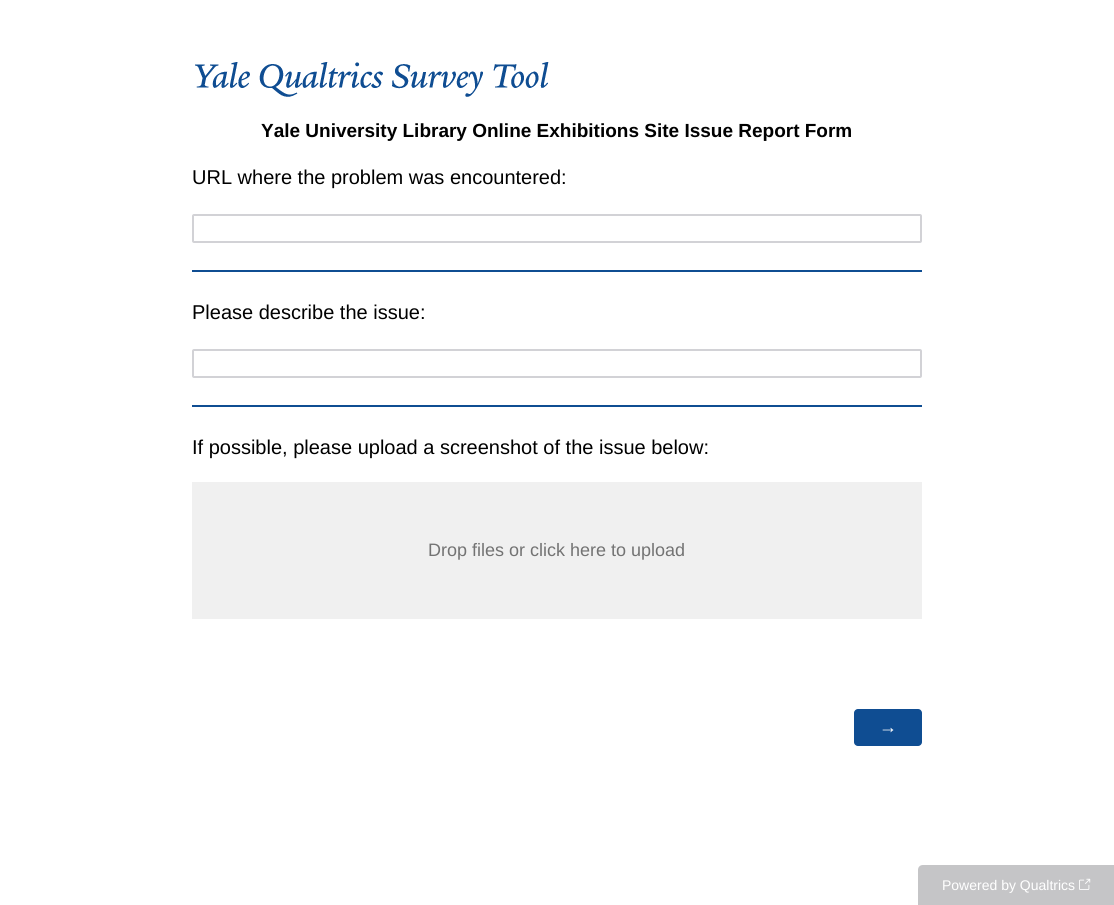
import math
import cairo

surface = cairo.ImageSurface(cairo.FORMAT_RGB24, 1114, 905)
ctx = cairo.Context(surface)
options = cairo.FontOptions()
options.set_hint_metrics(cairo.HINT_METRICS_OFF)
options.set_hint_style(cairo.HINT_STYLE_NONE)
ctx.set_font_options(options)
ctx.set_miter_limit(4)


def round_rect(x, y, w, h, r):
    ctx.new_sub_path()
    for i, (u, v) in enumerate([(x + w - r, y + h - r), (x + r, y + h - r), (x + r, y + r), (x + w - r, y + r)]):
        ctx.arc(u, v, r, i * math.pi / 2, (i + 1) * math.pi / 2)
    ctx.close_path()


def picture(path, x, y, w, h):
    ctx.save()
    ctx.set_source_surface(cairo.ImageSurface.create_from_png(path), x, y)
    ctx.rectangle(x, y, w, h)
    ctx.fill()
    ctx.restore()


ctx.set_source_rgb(1, 1, 1)
ctx.paint()
picture("img1.png", 195, 62, 354, 35)
ctx.select_font_face("Liberation Sans", cairo.FONT_SLANT_NORMAL, cairo.FONT_WEIGHT_BOLD)
ctx.set_font_size(19)
ctx.set_source_rgb(0, 0, 0)
ctx.move_to(261, 137)
ctx.show_text("Yale University Library Online Exhibitions Site Issue Report Form")
ctx.select_font_face("Liberation Sans")
ctx.set_font_size(20)
ctx.move_to(192, 184)
ctx.show_text("URL where the problem was encountered:")
round_rect(193, 215, 728, 27, 1)
ctx.set_source_rgb(0.824, 0.824, 0.839)
ctx.stroke()
ctx.set_source_rgb(0.059, 0.302, 0.573)
ctx.rectangle(192, 270, 730, 2)
ctx.fill()
ctx.set_source_rgb(0, 0, 0)
ctx.move_to(192, 319)
ctx.show_text("Please describe the issue:")
round_rect(193, 350, 728, 27, 1)
ctx.set_source_rgb(0.824, 0.824, 0.839)
ctx.stroke()
ctx.set_source_rgb(0.059, 0.302, 0.573)
ctx.rectangle(192, 405, 730, 2)
ctx.fill()
ctx.set_source_rgb(0, 0, 0)
ctx.move_to(192, 454)
ctx.show_text("If possible, please upload a screenshot of the issue below:")
ctx.set_source_rgb(0.941, 0.941, 0.941)
ctx.rectangle(192, 482, 730, 137)
ctx.fill()
ctx.set_font_size(18)
ctx.set_source_rgb(0.451, 0.451, 0.451)
ctx.move_to(428, 556)
ctx.show_text("Drop files or click here to upload")
ctx.set_source_rgb(0.059, 0.302, 0.573)
round_rect(854, 709, 68, 37, 4)
ctx.fill()
ctx.set_source_rgb(1, 1, 1)
ctx.move_to(879, 733)
ctx.show_text("→")
ctx.set_source_rgb(0.773, 0.773, 0.78)
ctx.new_path()
ctx.move_to(923, 865)
ctx.line_to(1114, 865)
ctx.line_to(1114, 905)
ctx.line_to(918, 905)
ctx.line_to(918, 870)
ctx.curve_to(918, 867, 920, 865, 923, 865)
ctx.close_path()
ctx.fill()
ctx.set_font_size(14)
ctx.set_source_rgb(1, 1, 1)
ctx.move_to(942, 890)
ctx.show_text("Powered by Qualtrics")
picture("img2.png", 1079, 878, 12, 12)
surface.write_to_png("page.png")
